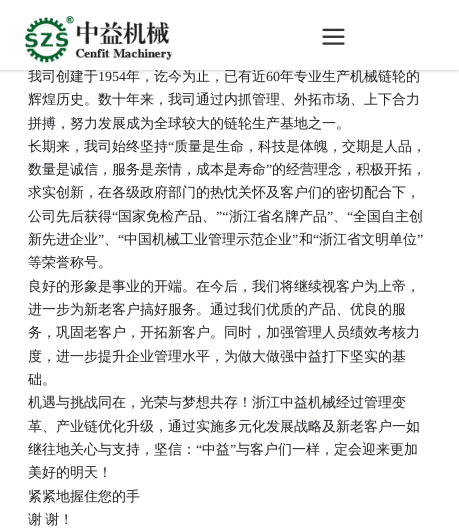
import math
import cairo

surface = cairo.ImageSurface(cairo.FORMAT_RGB24, 459, 528)
ctx = cairo.Context(surface)
options = cairo.FontOptions()
options.set_hint_metrics(cairo.HINT_METRICS_OFF)
options.set_hint_style(cairo.HINT_STYLE_NONE)
ctx.set_font_options(options)
ctx.set_miter_limit(4)


def spaced_text(x, y, s, letter, word):
    ctx.move_to(x, y)
    for ch in s:
        ctx.show_text(ch)
        ctx.rel_move_to(letter + word * (ch == ' '), 0)


def round_rect(x, y, w, h, r):
    ctx.new_sub_path()
    for i, (u, v) in enumerate([(x + w - r, y + h - r), (x + r, y + h - r), (x + r, y + r), (x + w - r, y + r)]):
        ctx.arc(u, v, r, i * math.pi / 2, (i + 1) * math.pi / 2)
    ctx.close_path()


def shadow(x, y, w, h, r, blur, alpha):
    ctx.push_group_with_content(cairo.CONTENT_ALPHA)
    ctx.set_operator(cairo.OPERATOR_SOURCE)
    for i in range(15, -16, -2):
        e = blur * i / 6
        if min(w, h) + 2 * e > 0:
            ctx.set_source_rgba(0, 0, 0, alpha * math.erfc((i - 1) / 8.5) / 2)
            round_rect(x - e, y - e, w + 2 * e, h + 2 * e, max(0, min(r + e + blur * .6, min(w, h) / 2 + e)))
            ctx.fill()
    ctx.mask(ctx.pop_group())


def picture(path, x, y, w, h):
    ctx.save()
    ctx.set_source_surface(cairo.ImageSurface.create_from_png(path), x, y)
    ctx.rectangle(x, y, w, h)
    ctx.fill()
    ctx.restore()


ctx.set_source_rgb(1, 1, 1)
ctx.paint()
ctx.set_source_rgb(0, 0, 0)
shadow(-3, -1, 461, 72, 0, 1.5, 0.18)
ctx.select_font_face("WenQuanYi Zen Hei Medium")
ctx.set_font_size(14)
ctx.set_source_rgb(0.129, 0.145, 0.161)
ctx.move_to(28, 81)
ctx.show_text("我司创建于")
ctx.move_to(126, 81)
ctx.show_text("年，讫今为止，已有近")
ctx.move_to(280, 81)
ctx.show_text("年专业生产机械链轮的")
ctx.set_source_rgb(1, 1, 1)
ctx.rectangle(0, 0, 459, 70)
ctx.fill()
picture("img1.png", 24, 16, 148, 49)
picture("img2.png", 322, 28, 23, 17)
ctx.select_font_face("Liberation Serif")
ctx.set_source_rgb(0.129, 0.145, 0.161)
ctx.move_to(98, 81)
ctx.show_text("1954")
ctx.move_to(266, 81)
ctx.show_text("60")
ctx.select_font_face("WenQuanYi Zen Hei Medium")
ctx.move_to(28, 104)
ctx.show_text("辉煌历史。数十年来，我司通过内抓管理、外拓市场、上下合力")
ctx.move_to(28, 128)
ctx.show_text("拼搏，努力发展成为全球较大的链轮生产基地之一。")
ctx.move_to(28, 151)
ctx.show_text("长期来，我司始终坚持")
ctx.select_font_face("Liberation Serif")
ctx.move_to(168, 151)
ctx.show_text("“")
ctx.select_font_face("WenQuanYi Zen Hei Medium")
ctx.move_to(174, 151)
ctx.show_text("质量是生命，科技是体魄，交期是人品，")
ctx.move_to(28, 174)
ctx.show_text("数量是诚信，服务是亲情，成本是寿命")
ctx.select_font_face("Liberation Serif")
ctx.move_to(266, 174)
ctx.show_text("”")
ctx.select_font_face("WenQuanYi Zen Hei Medium")
ctx.move_to(272, 174)
ctx.show_text("的经营理念，积极开拓，")
ctx.move_to(28, 197)
ctx.show_text("求实创新，在各级政府部门的热忱关怀及客户们的密切配合下，")
ctx.move_to(28, 221)
ctx.show_text("公司先后获得")
ctx.select_font_face("Liberation Serif")
ctx.move_to(112, 221)
ctx.show_text("“")
ctx.select_font_face("WenQuanYi Zen Hei Medium")
ctx.move_to(118, 221)
ctx.show_text("国家免检产品、")
ctx.select_font_face("Liberation Serif")
ctx.move_to(216, 221)
ctx.show_text("”“")
ctx.select_font_face("WenQuanYi Zen Hei Medium")
ctx.move_to(229, 221)
ctx.show_text("浙江省名牌产品")
ctx.select_font_face("Liberation Serif")
ctx.move_to(327, 221)
ctx.show_text("”")
ctx.move_to(347, 221)
ctx.show_text("“")
ctx.select_font_face("WenQuanYi Zen Hei Medium")
ctx.move_to(353, 221)
ctx.show_text("全国自主创")
ctx.move_to(333, 221)
ctx.show_text("、")
ctx.move_to(28, 244)
ctx.show_text("新先进企业")
ctx.select_font_face("Liberation Serif")
ctx.move_to(98, 244)
ctx.show_text("”")
ctx.move_to(118, 244)
ctx.show_text("“")
ctx.select_font_face("WenQuanYi Zen Hei Medium")
ctx.move_to(124, 244)
ctx.show_text("中国机械工业管理示范企业")
ctx.select_font_face("Liberation Serif")
ctx.move_to(292, 244)
ctx.show_text("”")
ctx.select_font_face("WenQuanYi Zen Hei Medium")
ctx.move_to(299, 244)
ctx.show_text("和")
ctx.select_font_face("Liberation Serif")
ctx.move_to(313, 244)
ctx.show_text("“")
ctx.select_font_face("WenQuanYi Zen Hei Medium")
ctx.move_to(319, 244)
ctx.show_text("浙江省文明单位")
ctx.select_font_face("Liberation Serif")
ctx.move_to(417, 244)
ctx.show_text("”")
ctx.select_font_face("WenQuanYi Zen Hei Medium")
ctx.move_to(104, 244)
ctx.show_text("、")
ctx.move_to(28, 267)
ctx.show_text("等荣誉称号。")
ctx.move_to(28, 291)
ctx.show_text("良好的形象是事业的开端。在今后，我们将继续视客户为上帝，")
ctx.move_to(28, 314)
ctx.show_text("进一步为新老客户搞好服务。通过我们优质的产品、优良的服")
ctx.move_to(28, 337)
ctx.show_text("务，巩固老客户，开拓新客户。同时，加强管理人员绩效考核力")
ctx.move_to(28, 361)
ctx.show_text("度，进一步提升企业管理水平，为做大做强中益打下坚实的基")
ctx.move_to(28, 384)
ctx.show_text("础。")
ctx.move_to(28, 407)
ctx.show_text("机遇与挑战同在，光荣与梦想共存！浙江中益机械经过管理变")
ctx.move_to(28, 431)
ctx.show_text("革、产业链优化升级，通过实施多元化发展战略及新老客户一如")
ctx.move_to(28, 454)
ctx.show_text("继往地关心与支持，坚信：")
ctx.select_font_face("Liberation Serif")
ctx.move_to(196, 454)
ctx.show_text("“")
ctx.select_font_face("WenQuanYi Zen Hei Medium")
ctx.move_to(202, 454)
ctx.show_text("中益")
ctx.select_font_face("Liberation Serif")
ctx.move_to(230, 454)
ctx.show_text("”")
ctx.select_font_face("WenQuanYi Zen Hei Medium")
ctx.move_to(236, 454)
ctx.show_text("与客户们一样，定会迎来更加")
ctx.move_to(28, 477)
ctx.show_text("美好的明天！")
ctx.move_to(28, 501)
ctx.show_text("紧紧地握住您的手")
spaced_text(28, 524, "谢 谢！", 0, -1)
surface.write_to_png("page.png")
